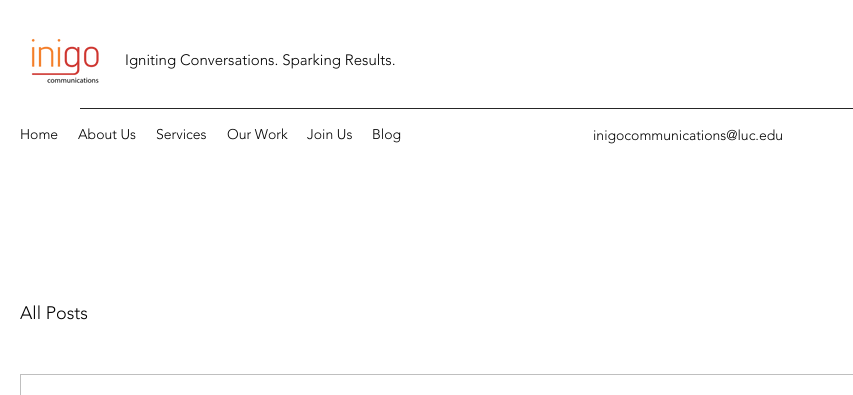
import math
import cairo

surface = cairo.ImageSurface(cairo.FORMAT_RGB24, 853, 395)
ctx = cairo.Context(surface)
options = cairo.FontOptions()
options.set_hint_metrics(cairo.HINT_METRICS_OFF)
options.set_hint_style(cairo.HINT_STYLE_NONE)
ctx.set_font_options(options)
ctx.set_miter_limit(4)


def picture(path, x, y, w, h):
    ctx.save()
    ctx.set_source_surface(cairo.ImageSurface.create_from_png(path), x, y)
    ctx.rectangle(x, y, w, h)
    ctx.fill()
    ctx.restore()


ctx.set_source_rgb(1, 1, 1)
ctx.paint()
picture("img1.png", 31, 38, 68, 46)
ctx.select_font_face("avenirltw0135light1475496 Light")
ctx.set_font_size(15)
ctx.set_source_rgb(0, 0, 0)
ctx.move_to(125, 65)
ctx.show_text("Igniting Conversations. Sparking Results.")
ctx.set_source_rgb(0.149, 0.149, 0.149)
ctx.rectangle(80, 108, 773, 1)
ctx.fill()
ctx.set_font_size(14)
ctx.set_source_rgb(0, 0, 0)
ctx.move_to(20, 139)
ctx.show_text("Home")
ctx.move_to(78, 139)
ctx.show_text("About Us")
ctx.move_to(156, 139)
ctx.show_text("Services")
ctx.move_to(227, 139)
ctx.show_text("Our Work")
ctx.move_to(307, 139)
ctx.show_text("Join Us")
ctx.move_to(372, 139)
ctx.show_text("Blog")
ctx.move_to(593, 140)
ctx.show_text("inigocommunications@luc.edu")
ctx.set_font_size(18)
ctx.move_to(20, 319)
ctx.show_text("All Posts")
ctx.rectangle(20.5, 374.5, 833, 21)
ctx.set_source_rgb(0.749, 0.749, 0.749)
ctx.set_line_width(1)
ctx.stroke()
surface.write_to_png("page.png")
